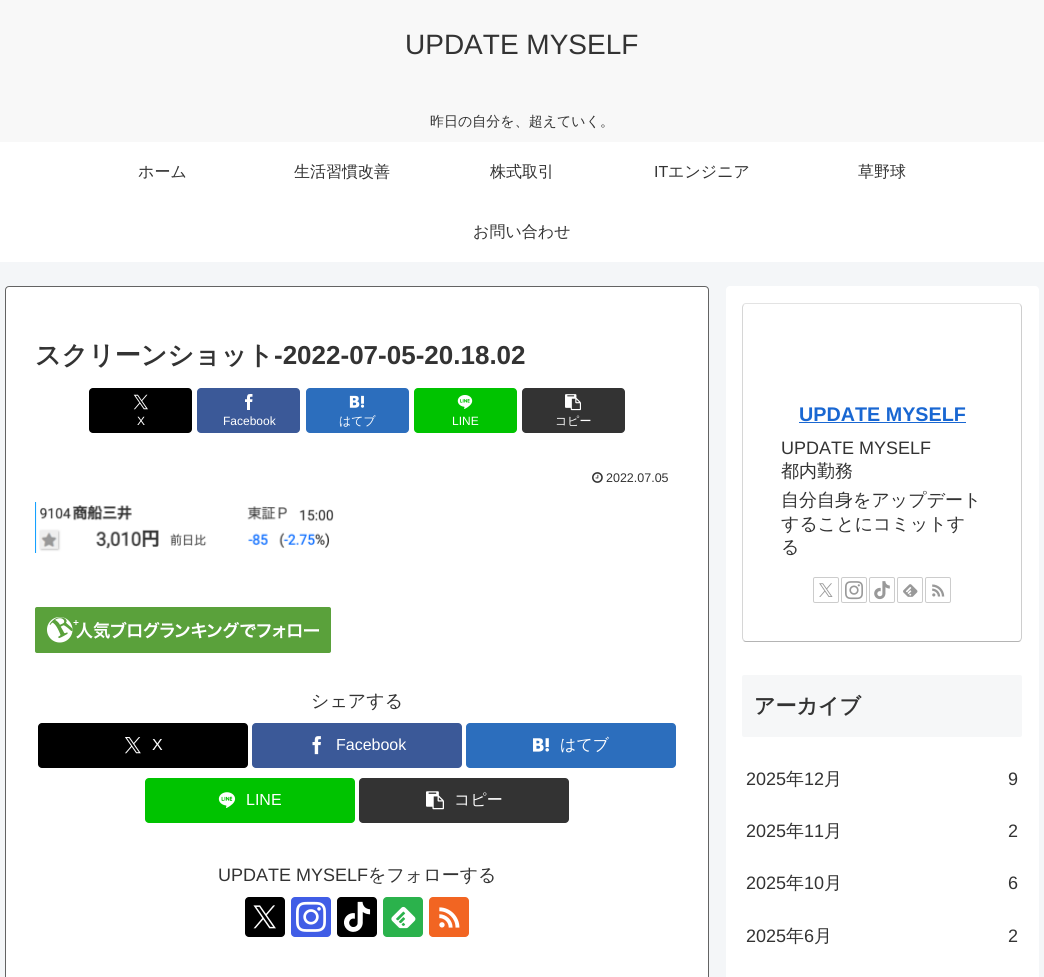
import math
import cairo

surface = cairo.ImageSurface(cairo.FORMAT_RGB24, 1044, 977)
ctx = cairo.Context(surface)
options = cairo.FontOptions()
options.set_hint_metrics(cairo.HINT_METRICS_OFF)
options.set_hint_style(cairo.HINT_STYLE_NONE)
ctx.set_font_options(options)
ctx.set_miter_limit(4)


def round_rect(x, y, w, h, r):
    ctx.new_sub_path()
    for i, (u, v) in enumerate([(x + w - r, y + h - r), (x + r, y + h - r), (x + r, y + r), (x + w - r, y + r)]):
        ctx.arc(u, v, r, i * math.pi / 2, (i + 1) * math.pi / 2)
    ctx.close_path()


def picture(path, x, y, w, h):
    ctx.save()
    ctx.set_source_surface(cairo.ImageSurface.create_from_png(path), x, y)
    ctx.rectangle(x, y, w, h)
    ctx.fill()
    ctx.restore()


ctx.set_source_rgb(0.957, 0.961, 0.969)
ctx.paint()
ctx.set_source_rgb(0.969, 0.969, 0.969)
ctx.rectangle(0, 0, 1044, 142)
ctx.fill()
ctx.select_font_face("Liberation Sans")
ctx.set_font_size(28)
ctx.set_source_rgb(0.2, 0.2, 0.2)
ctx.move_to(405, 54)
ctx.show_text("UPDATE MYSELF")
ctx.select_font_face("WenQuanYi Zen Hei Medium")
ctx.set_font_size(14)
ctx.move_to(430, 126)
ctx.show_text("昨日の自分を、超えていく。")
ctx.set_source_rgb(1, 1, 1)
ctx.rectangle(0, 142, 1044, 120)
ctx.fill()
ctx.set_font_size(16)
ctx.set_source_rgb(0.2, 0.2, 0.2)
ctx.move_to(138, 177)
ctx.show_text("ホーム")
ctx.move_to(294, 177)
ctx.show_text("生活習慣改善")
ctx.move_to(490, 177)
ctx.show_text("株式取引")
ctx.select_font_face("Liberation Sans")
ctx.move_to(654, 177)
ctx.show_text("IT")
ctx.select_font_face("WenQuanYi Zen Hei Medium")
ctx.move_to(668, 177)
ctx.show_text("エンジニア")
ctx.move_to(858, 177)
ctx.show_text("草野球")
ctx.move_to(473, 237)
ctx.show_text("お問い合わせ")
ctx.set_source_rgb(1, 1, 1)
round_rect(5.5, 286.5, 703, 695, 3.5)
ctx.fill_preserve()
ctx.set_source_rgb(0.388, 0.388, 0.388)
ctx.set_line_width(1)
ctx.stroke()
ctx.select_font_face("WenQuanYi Zen Hei", cairo.FONT_SLANT_NORMAL, cairo.FONT_WEIGHT_BOLD)
ctx.set_font_size(26)
ctx.set_source_rgb(0.2, 0.2, 0.2)
ctx.move_to(35, 364)
ctx.show_text("スクリーンショット")
ctx.select_font_face("Liberation Sans", cairo.FONT_SLANT_NORMAL, cairo.FONT_WEIGHT_BOLD)
ctx.move_to(274, 364)
ctx.show_text("-2022-07-05-20.18.02")
ctx.set_source_rgb(0, 0, 0)
round_rect(89, 388, 103, 45, 4)
ctx.fill()
picture("img1.png", 133, 394, 15, 16)
ctx.select_font_face("Liberation Sans")
ctx.set_font_size(12)
ctx.set_source_rgb(1, 1, 1)
ctx.move_to(137, 425)
ctx.show_text("X")
ctx.set_source_rgb(0.231, 0.349, 0.596)
round_rect(197, 388, 103, 45, 4)
ctx.fill()
picture("img2.png", 245, 394, 8, 16)
ctx.set_source_rgb(1, 1, 1)
ctx.move_to(223, 425)
ctx.show_text("Facebook")
ctx.set_source_rgb(0.173, 0.431, 0.741)
round_rect(306, 388, 103, 45, 4)
ctx.fill()
picture("img3.png", 349, 395, 16, 13)
ctx.select_font_face("WenQuanYi Zen Hei Medium")
ctx.set_source_rgb(1, 1, 1)
ctx.move_to(339, 425)
ctx.show_text("はてブ")
ctx.set_source_rgb(0, 0.765, 0)
round_rect(414, 388, 103, 45, 4)
ctx.fill()
picture("img4.png", 457, 395, 16, 14)
ctx.select_font_face("Liberation Sans")
ctx.set_source_rgb(1, 1, 1)
ctx.move_to(452, 425)
ctx.show_text("LINE")
ctx.set_source_rgb(0.2, 0.2, 0.2)
round_rect(522, 388, 103, 45, 4)
ctx.fill()
picture("img5.png", 565, 394, 16, 17)
ctx.select_font_face("WenQuanYi Zen Hei Medium")
ctx.set_source_rgb(1, 1, 1)
ctx.move_to(555, 425)
ctx.show_text("コピー")
picture("img6.png", 592, 472, 11, 11)
ctx.select_font_face("Liberation Sans")
ctx.set_font_size(12.5)
ctx.set_source_rgb(0.2, 0.2, 0.2)
ctx.move_to(606, 482)
ctx.show_text("2022.07.05")
picture("img7.png", 35, 502, 299, 51)
picture("img8.png", 35, 607, 296, 46)
ctx.select_font_face("WenQuanYi Zen Hei Medium")
ctx.set_font_size(18)
ctx.move_to(311, 707)
ctx.show_text("シェアする")
ctx.set_source_rgb(0, 0, 0)
round_rect(38, 723, 210, 45, 4)
ctx.fill()
picture("img9.png", 125, 737, 16, 17)
ctx.select_font_face("Liberation Sans")
ctx.set_font_size(16)
ctx.set_source_rgb(1, 1, 1)
ctx.move_to(152, 750)
ctx.show_text("X")
ctx.set_source_rgb(0.231, 0.349, 0.596)
round_rect(252, 723, 210, 45, 4)
ctx.fill()
picture("img10.png", 312, 736, 9, 19)
ctx.set_source_rgb(1, 1, 1)
ctx.move_to(336, 750)
ctx.show_text("Facebook")
ctx.set_source_rgb(0.173, 0.431, 0.741)
round_rect(466, 723, 210, 45, 4)
ctx.fill()
picture("img11.png", 533, 738, 16, 14)
ctx.select_font_face("WenQuanYi Zen Hei Medium")
ctx.set_source_rgb(1, 1, 1)
ctx.move_to(560, 750)
ctx.show_text("はてブ")
ctx.set_source_rgb(0, 0.765, 0)
round_rect(145, 778, 210, 45, 4)
ctx.fill()
picture("img12.png", 218, 792, 18, 16)
ctx.select_font_face("Liberation Sans")
ctx.set_source_rgb(1, 1, 1)
ctx.move_to(246, 805)
ctx.show_text("LINE")
ctx.set_source_rgb(0.2, 0.2, 0.2)
round_rect(359, 778, 210, 45, 4)
ctx.fill()
picture("img13.png", 426, 791, 18, 19)
ctx.select_font_face("WenQuanYi Zen Hei Medium")
ctx.set_source_rgb(1, 1, 1)
ctx.move_to(454, 805)
ctx.show_text("コピー")
ctx.select_font_face("Liberation Sans")
ctx.set_font_size(18)
ctx.set_source_rgb(0.2, 0.2, 0.2)
ctx.move_to(218, 881)
ctx.show_text("UPDATE MYSELF")
ctx.select_font_face("WenQuanYi Zen Hei Medium")
ctx.move_to(368, 881)
ctx.show_text("をフォローする")
ctx.set_source_rgb(0, 0, 0)
round_rect(245, 897, 40, 40, 4)
ctx.fill()
picture("img14.png", 253, 905, 23, 24)
ctx.set_source_rgb(0.251, 0.365, 0.902)
round_rect(291, 897, 40, 40, 4)
ctx.fill()
picture("img15.png", 296, 901, 30, 31)
ctx.set_source_rgb(0, 0, 0)
round_rect(337, 897, 40, 40, 4)
ctx.fill()
picture("img16.png", 344, 901, 27, 31)
ctx.set_source_rgb(0.169, 0.698, 0.298)
round_rect(383, 897, 40, 40, 4)
ctx.fill()
picture("img17.png", 391, 906, 25, 23)
ctx.set_source_rgb(0.949, 0.396, 0.133)
round_rect(429, 897, 40, 40, 4)
ctx.fill()
picture("img18.png", 439, 907, 21, 21)
ctx.set_source_rgb(1, 1, 1)
round_rect(726, 286, 313, 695, 4)
ctx.fill()
ctx.new_path()
ctx.move_to(743.5, 304.5)
ctx.curve_to(744, 304, 745, 303.5, 746, 303.5)
ctx.line_to(1018, 303.5)
ctx.curve_to(1019, 303.5, 1020, 304, 1020.5, 304.5)
ctx.set_source_rgb(0.89, 0.89, 0.89)
ctx.stroke()
ctx.new_path()
ctx.move_to(1020.5, 304.5)
ctx.line_to(1021.5, 307)
ctx.line_to(1021.5, 638)
ctx.line_to(1020.5, 640.5)
ctx.set_source_rgb(0.808, 0.808, 0.808)
ctx.stroke()
ctx.new_path()
ctx.move_to(1020.5, 640.5)
ctx.curve_to(1020, 641, 1019, 641.5, 1018, 641.5)
ctx.line_to(746, 641.5)
ctx.curve_to(745, 641.5, 744, 641, 743.5, 640.5)
ctx.set_source_rgb(0.706, 0.706, 0.706)
ctx.stroke()
ctx.new_path()
ctx.move_to(743.5, 640.5)
ctx.line_to(742.5, 638)
ctx.line_to(742.5, 307)
ctx.line_to(743.5, 304.5)
ctx.set_source_rgb(0.839, 0.839, 0.839)
ctx.stroke()
ctx.select_font_face("Liberation Sans", cairo.FONT_SLANT_NORMAL, cairo.FONT_WEIGHT_BOLD)
ctx.set_font_size(19.75)
ctx.set_source_rgb(0.098, 0.404, 0.824)
ctx.move_to(799, 421)
ctx.show_text("UPDATE MYSELF")
ctx.rectangle(799, 422, 167, 1)
ctx.fill()
ctx.select_font_face("Liberation Sans")
ctx.set_font_size(18)
ctx.set_source_rgb(0.2, 0.2, 0.2)
ctx.move_to(781, 454)
ctx.show_text("UPDATE MYSELF")
ctx.select_font_face("WenQuanYi Zen Hei Medium")
ctx.move_to(781, 477)
ctx.show_text("都内勤務")
ctx.move_to(781, 506)
ctx.show_text("自分自身をアップデート")
ctx.move_to(781, 530)
ctx.show_text("することにコミットす")
ctx.move_to(781, 553)
ctx.show_text("る")
round_rect(813.5, 577.5, 25, 25, 1.5)
ctx.set_source_rgb(0.8, 0.8, 0.8)
ctx.stroke()
picture("img19.png", 819, 583, 14, 14)
round_rect(841.5, 577.5, 25, 25, 1.5)
ctx.stroke()
picture("img20.png", 845, 581, 18, 19)
round_rect(869.5, 577.5, 25, 25, 1.5)
ctx.stroke()
picture("img21.png", 874, 581, 16, 19)
round_rect(897.5, 577.5, 25, 25, 1.5)
ctx.stroke()
picture("img22.png", 903, 584, 15, 13)
round_rect(925.5, 577.5, 25, 25, 1.5)
ctx.stroke()
picture("img23.png", 932, 584, 13, 13)
ctx.set_source_rgb(0.961, 0.965, 0.969)
round_rect(742, 675, 280, 62, 2)
ctx.fill()
ctx.select_font_face("WenQuanYi Zen Hei", cairo.FONT_SLANT_NORMAL, cairo.FONT_WEIGHT_BOLD)
ctx.set_font_size(21)
ctx.set_source_rgb(0.2, 0.2, 0.2)
ctx.move_to(754, 713)
ctx.show_text("アーカイブ")
ctx.select_font_face("Liberation Sans")
ctx.set_font_size(18)
ctx.move_to(746, 785)
ctx.show_text("2025")
ctx.select_font_face("WenQuanYi Zen Hei Medium")
ctx.move_to(786, 785)
ctx.show_text("年")
ctx.select_font_face("Liberation Sans")
ctx.move_to(804, 785)
ctx.show_text("12")
ctx.select_font_face("WenQuanYi Zen Hei Medium")
ctx.move_to(824, 785)
ctx.show_text("月")
ctx.select_font_face("Liberation Sans")
ctx.move_to(1008, 785)
ctx.show_text("9")
ctx.move_to(746, 837)
ctx.show_text("2025")
ctx.select_font_face("WenQuanYi Zen Hei Medium")
ctx.move_to(786, 837)
ctx.show_text("年")
ctx.select_font_face("Liberation Sans")
ctx.move_to(804, 837)
ctx.show_text("11")
ctx.select_font_face("WenQuanYi Zen Hei Medium")
ctx.move_to(824, 837)
ctx.show_text("月")
ctx.select_font_face("Liberation Sans")
ctx.move_to(1008, 837)
ctx.show_text("2")
ctx.move_to(746, 889)
ctx.show_text("2025")
ctx.select_font_face("WenQuanYi Zen Hei Medium")
ctx.move_to(786, 889)
ctx.show_text("年")
ctx.select_font_face("Liberation Sans")
ctx.move_to(804, 889)
ctx.show_text("10")
ctx.select_font_face("WenQuanYi Zen Hei Medium")
ctx.move_to(824, 889)
ctx.show_text("月")
ctx.select_font_face("Liberation Sans")
ctx.move_to(1008, 889)
ctx.show_text("6")
ctx.move_to(746, 942)
ctx.show_text("2025")
ctx.select_font_face("WenQuanYi Zen Hei Medium")
ctx.move_to(786, 942)
ctx.show_text("年")
ctx.select_font_face("Liberation Sans")
ctx.move_to(804, 942)
ctx.show_text("6")
ctx.select_font_face("WenQuanYi Zen Hei Medium")
ctx.move_to(814, 942)
ctx.show_text("月")
ctx.select_font_face("Liberation Sans")
ctx.move_to(1008, 942)
ctx.show_text("2")
surface.write_to_png("page.png")
